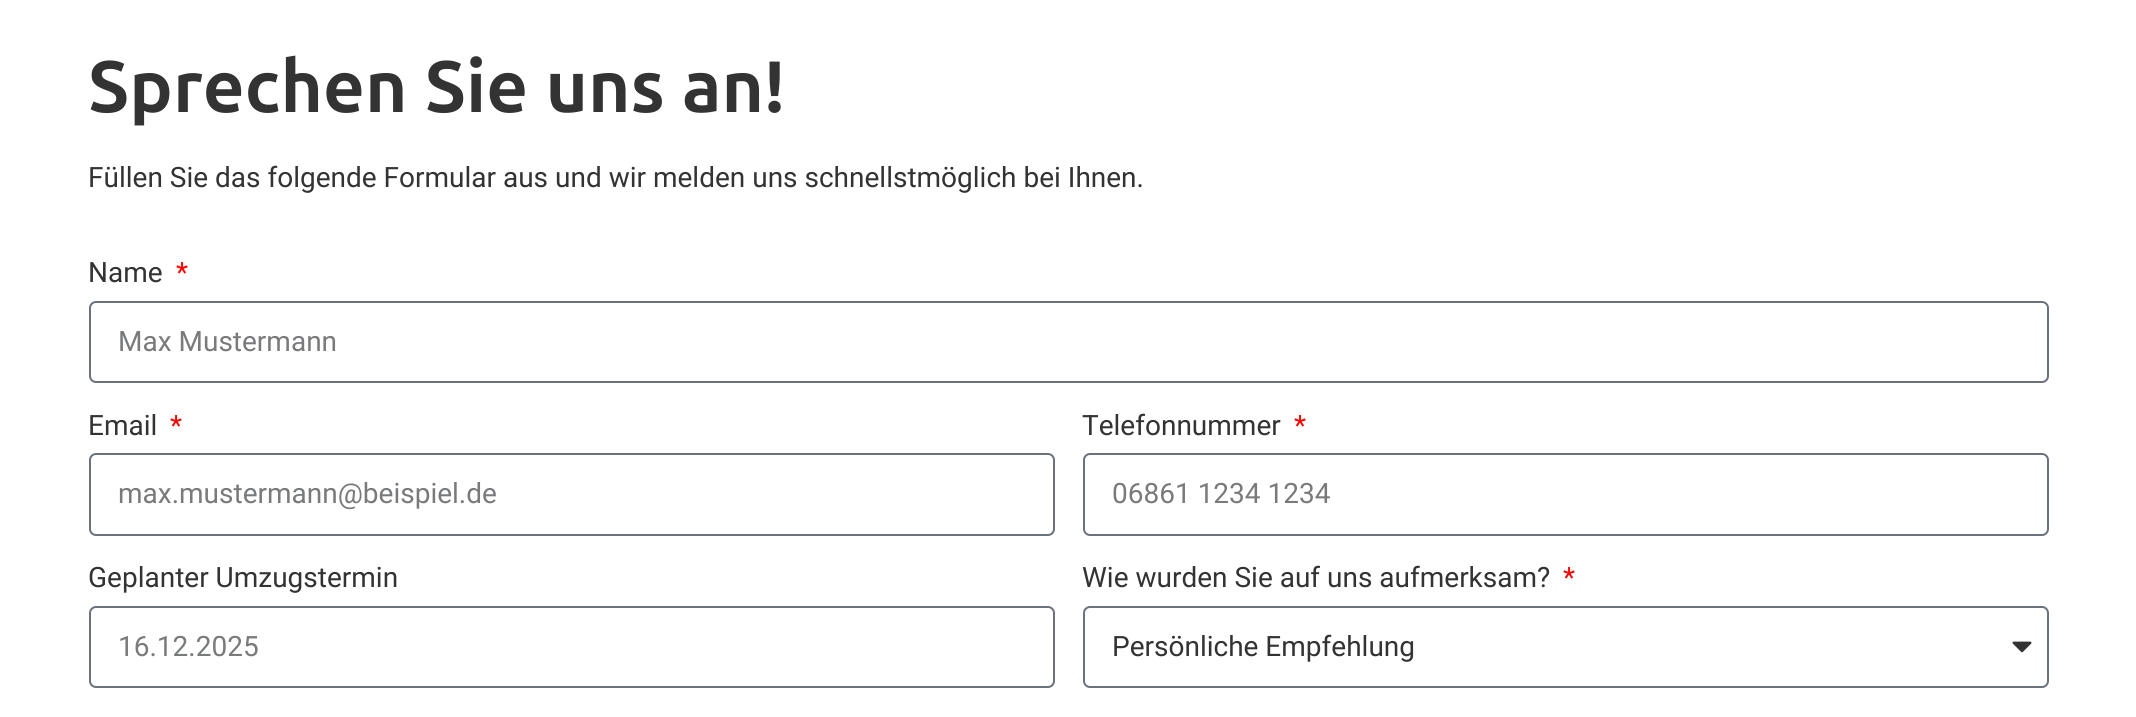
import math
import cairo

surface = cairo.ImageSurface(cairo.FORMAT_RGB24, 2136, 717)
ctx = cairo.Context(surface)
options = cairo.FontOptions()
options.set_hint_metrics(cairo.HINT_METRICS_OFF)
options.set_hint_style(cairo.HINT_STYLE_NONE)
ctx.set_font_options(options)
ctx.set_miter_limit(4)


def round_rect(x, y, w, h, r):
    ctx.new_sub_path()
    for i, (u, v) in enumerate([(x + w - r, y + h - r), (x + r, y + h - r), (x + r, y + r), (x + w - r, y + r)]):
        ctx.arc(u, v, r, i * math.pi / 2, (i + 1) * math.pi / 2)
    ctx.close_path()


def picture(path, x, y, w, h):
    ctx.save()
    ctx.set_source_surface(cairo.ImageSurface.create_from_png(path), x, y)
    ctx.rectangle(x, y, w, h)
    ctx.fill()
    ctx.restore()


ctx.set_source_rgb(1, 1, 1)
ctx.paint()
ctx.select_font_face("Ubuntu", cairo.FONT_SLANT_NORMAL, cairo.FONT_WEIGHT_BOLD)
ctx.set_font_size(72.75)
ctx.set_source_rgb(0.2, 0.2, 0.2)
ctx.move_to(88, 112)
ctx.show_text("Sprechen Sie uns an!")
ctx.select_font_face("Roboto")
ctx.set_font_size(28)
ctx.move_to(88, 187)
ctx.show_text("Füllen Sie das folgende Formular aus und wir melden uns schnellstmöglich bei Ihnen.")
ctx.move_to(88, 282)
ctx.show_text("Name")
ctx.set_source_rgb(1, 0, 0)
ctx.move_to(176, 282)
ctx.show_text("*")
round_rect(90, 302, 1958, 80, 6)
ctx.set_source_rgb(0.412, 0.447, 0.49)
ctx.stroke()
ctx.set_source_rgb(0.475, 0.478, 0.486)
ctx.move_to(118, 351)
ctx.show_text("Max Mustermann")
ctx.set_source_rgb(0.2, 0.2, 0.2)
ctx.move_to(88, 435)
ctx.show_text("Email")
ctx.set_source_rgb(1, 0, 0)
ctx.move_to(170, 435)
ctx.show_text("*")
round_rect(90, 454, 964, 81, 6)
ctx.set_source_rgb(0.412, 0.447, 0.49)
ctx.stroke()
ctx.set_source_rgb(0.475, 0.478, 0.486)
ctx.move_to(118, 503)
ctx.show_text("max.mustermann@beispiel.de")
ctx.set_source_rgb(0.2, 0.2, 0.2)
ctx.move_to(1082, 435)
ctx.show_text("Telefonnummer")
ctx.set_source_rgb(1, 0, 0)
ctx.move_to(1294, 435)
ctx.show_text("*")
round_rect(1084, 454, 964, 81, 6)
ctx.set_source_rgb(0.412, 0.447, 0.49)
ctx.stroke()
ctx.set_source_rgb(0.475, 0.478, 0.486)
ctx.move_to(1112, 503)
ctx.show_text("06861 1234 1234")
ctx.set_source_rgb(0.2, 0.2, 0.2)
ctx.move_to(88, 587)
ctx.show_text("Geplanter Umzugstermin")
round_rect(90, 607, 964, 80, 6)
ctx.set_source_rgb(0.412, 0.447, 0.49)
ctx.stroke()
ctx.set_source_rgb(0.475, 0.478, 0.486)
ctx.move_to(118, 656)
ctx.show_text("16.12.2025")
ctx.set_source_rgb(0.2, 0.2, 0.2)
ctx.move_to(1082, 587)
ctx.show_text("Wie wurden Sie auf uns aufmerksam?")
ctx.set_source_rgb(1, 0, 0)
ctx.move_to(1563, 587)
ctx.show_text("*")
round_rect(1084, 607, 964, 80, 6)
ctx.set_source_rgb(0.412, 0.447, 0.49)
ctx.stroke()
ctx.set_source_rgb(0.2, 0.2, 0.2)
ctx.move_to(1112, 656)
ctx.show_text("Persönliche Empfehlung")
picture("img1.png", 2012, 641, 20, 12)
surface.write_to_png("page.png")
